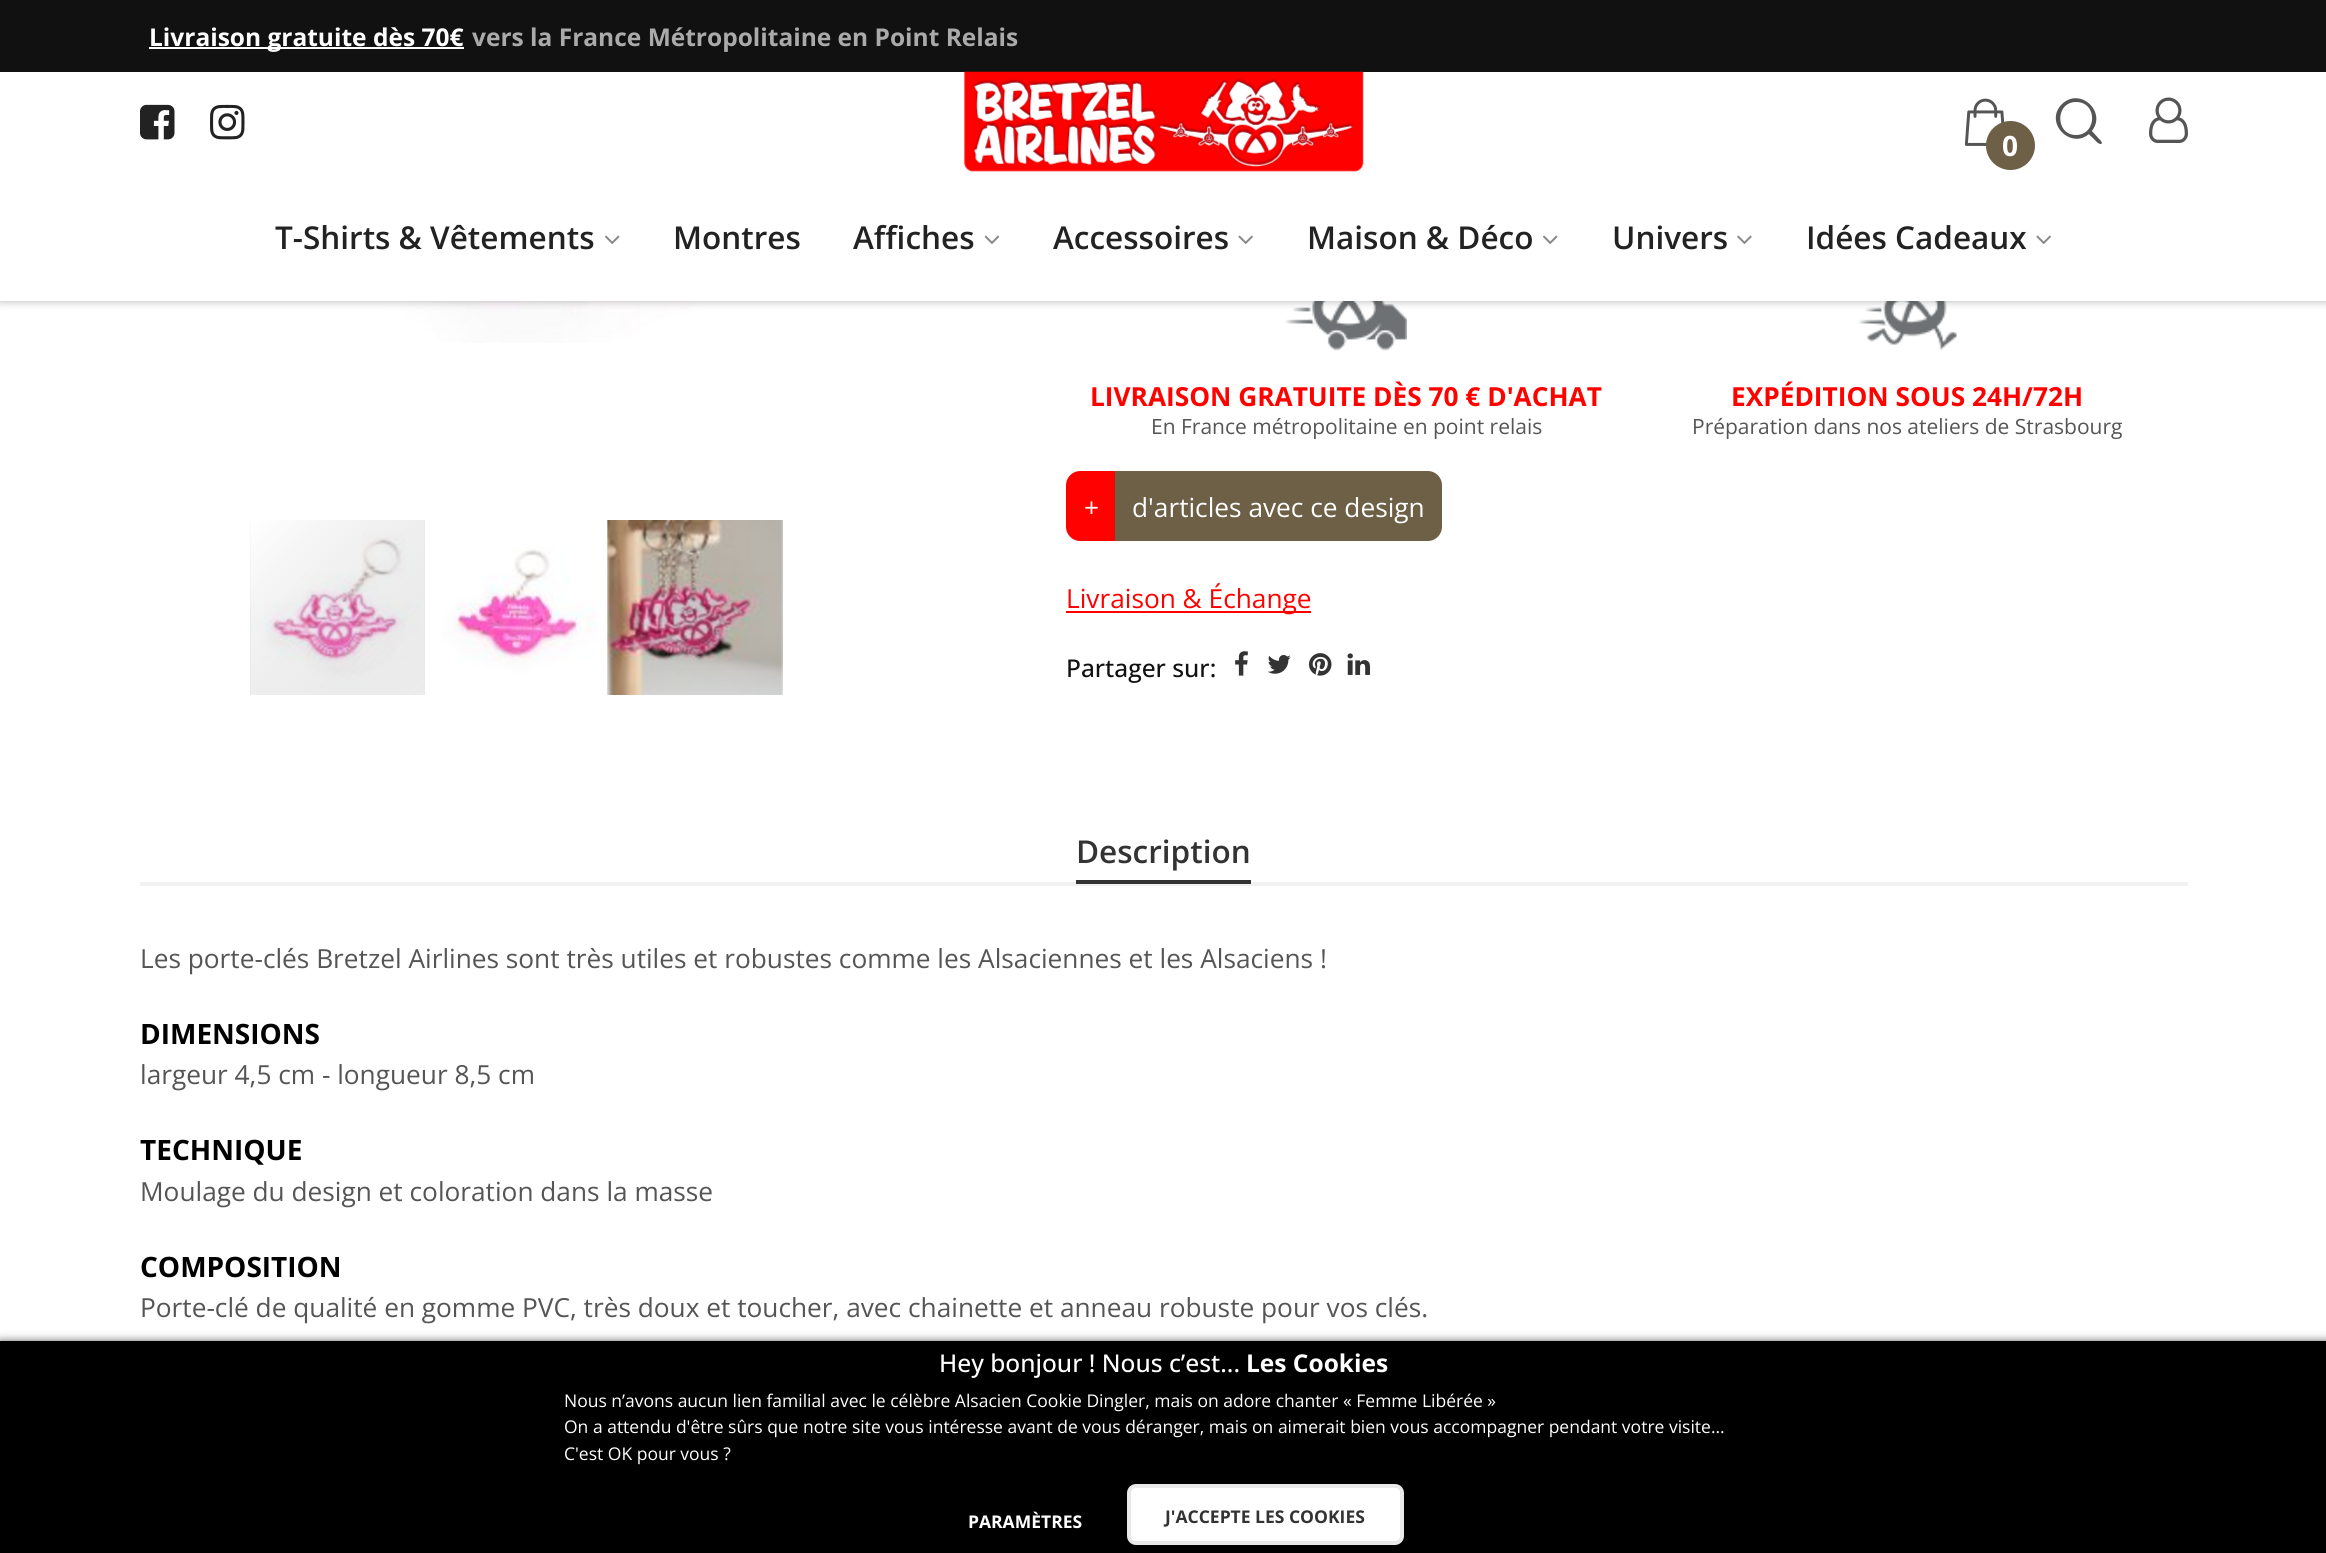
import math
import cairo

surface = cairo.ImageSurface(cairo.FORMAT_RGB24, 2326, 1553)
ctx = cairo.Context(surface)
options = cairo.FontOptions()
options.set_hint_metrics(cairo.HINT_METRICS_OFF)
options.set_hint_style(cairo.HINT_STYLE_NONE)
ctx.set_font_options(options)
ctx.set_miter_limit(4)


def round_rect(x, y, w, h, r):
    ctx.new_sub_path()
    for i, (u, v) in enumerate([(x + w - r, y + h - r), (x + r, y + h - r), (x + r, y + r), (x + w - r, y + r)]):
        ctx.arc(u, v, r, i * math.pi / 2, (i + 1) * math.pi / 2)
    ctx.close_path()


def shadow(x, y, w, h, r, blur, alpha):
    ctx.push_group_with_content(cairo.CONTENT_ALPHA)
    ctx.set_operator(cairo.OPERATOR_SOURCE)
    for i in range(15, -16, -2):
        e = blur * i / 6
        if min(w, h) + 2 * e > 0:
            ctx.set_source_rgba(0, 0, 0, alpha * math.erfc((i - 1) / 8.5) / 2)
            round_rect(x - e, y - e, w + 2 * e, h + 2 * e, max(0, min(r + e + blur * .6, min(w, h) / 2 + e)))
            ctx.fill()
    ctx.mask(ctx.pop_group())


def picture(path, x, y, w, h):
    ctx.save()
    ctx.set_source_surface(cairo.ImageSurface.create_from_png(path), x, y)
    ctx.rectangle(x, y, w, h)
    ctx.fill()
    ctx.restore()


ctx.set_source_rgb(1, 1, 1)
ctx.paint()
picture("img10.png", 214, 301, 563, 42)
picture("img14.png", 1285, 301, 122, 50)
picture("img15.png", 1858, 301, 99, 50)
ctx.set_source_rgb(0, 0, 0)
shadow(0, 0, 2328, 301, 0, 4.5, 0.3)
ctx.set_source_rgb(1, 1, 1)
ctx.rectangle(0, 72, 2326, 229)
ctx.fill()
ctx.set_source_rgb(0.067, 0.067, 0.067)
ctx.rectangle(0, 0, 2326, 72)
ctx.fill()
ctx.set_source_rgb(1, 1, 1)
ctx.rectangle(149, 47, 315, 2)
ctx.fill()
ctx.select_font_face("Open Sans", cairo.FONT_SLANT_NORMAL, cairo.FONT_WEIGHT_BOLD)
ctx.set_font_size(24.5)
ctx.move_to(149, 46)
ctx.show_text("Livraison gratuite dès 70€")
ctx.set_source_rgb(0.667, 0.667, 0.667)
ctx.move_to(472, 46)
ctx.show_text("vers la France Métropolitaine en Point Relais")
picture("img1.png", 140, 104, 35, 36)
picture("img2.png", 210, 104, 35, 36)
picture("img3.png", 964, 71, 400, 101)
picture("img4.png", 1964, 98, 41, 48)
ctx.set_source_rgb(0.427, 0.376, 0.278)
ctx.arc(2010.5, 145.5, 24.5, 0, 2 * math.pi)
ctx.fill()
ctx.set_font_size(28)
ctx.set_source_rgb(1, 1, 1)
ctx.move_to(2002, 156)
ctx.show_text("0")
ctx.set_source_rgb(0.333, 0.333, 0.333)
ctx.new_path()
ctx.move_to(2062, 104)
ctx.curve_to(2081, 86, 2109, 114, 2090, 133)
ctx.curve_to(2072, 151, 2043, 123, 2062, 104)
ctx.close_path()
ctx.move_to(2076, 135)
ctx.curve_to(2097, 135, 2098, 102, 2076, 102)
ctx.curve_to(2055, 102, 2055, 135, 2076, 135)
ctx.close_path()
ctx.move_to(2101, 141)
ctx.line_to(2102, 143)
ctx.curve_to(2100, 147, 2093, 138, 2093, 138)
ctx.curve_to(2092, 137, 2086, 133, 2088, 130)
ctx.curve_to(2089, 129, 2090, 129, 2091, 130)
ctx.close_path()
ctx.fill()
picture("img5.png", 2149, 97, 39, 46)
ctx.select_font_face("Open Sans SemiBold")
ctx.set_font_size(31.5)
ctx.set_source_rgb(0.133, 0.133, 0.133)
ctx.move_to(275, 249)
ctx.show_text("T-Shirts & Vêtements")
picture("img6.png", 605, 235, 15, 9)
ctx.move_to(673, 249)
ctx.show_text("Montres")
ctx.move_to(853, 249)
ctx.show_text("Affiches")
picture("img7.png", 984, 235, 16, 9)
ctx.move_to(1053, 249)
ctx.show_text("Accessoires")
picture("img8.png", 1238, 235, 15, 9)
ctx.move_to(1307, 249)
ctx.show_text("Maison & Déco")
picture("img6.png", 1543, 235, 15, 9)
ctx.move_to(1612, 249)
ctx.show_text("Univers")
picture("img9.png", 1737, 235, 15, 9)
ctx.move_to(1806, 249)
ctx.show_text("Idées Cadeaux")
picture("img8.png", 2036, 235, 15, 9)
ctx.set_source_rgb(0.922, 0.922, 0.922)
ctx.rectangle(250, 520, 175, 175)
ctx.fill()
picture("img11.png", 250, 520, 175, 175)
gradient = cairo.LinearGradient(250, 520, 425, 695)
gradient.add_color_stop_rgba(0, 1, 1, 1, 0.25)
gradient.add_color_stop_rgba(1, 0.251, 0.251, 0.251, 0.1)
ctx.set_source(gradient)
ctx.rectangle(250, 520, 175, 175)
ctx.fill()
picture("img12.png", 429, 520, 175, 175)
ctx.set_source_rgb(0.922, 0.922, 0.922)
ctx.rectangle(607, 520, 175, 175)
ctx.fill()
picture("img13.png", 607, 520, 176, 175)
ctx.select_font_face("Open Sans", cairo.FONT_SLANT_NORMAL, cairo.FONT_WEIGHT_BOLD)
ctx.set_font_size(26.25)
ctx.set_source_rgb(1, 0.008, 0)
ctx.move_to(1090, 406)
ctx.show_text("LIVRAISON GRATUITE DÈS 70 € D'ACHAT")
ctx.select_font_face("Open Sans")
ctx.set_font_size(21)
ctx.set_source_rgb(0.333, 0.333, 0.333)
ctx.move_to(1151, 434)
ctx.show_text("En France métropolitaine en point relais")
ctx.select_font_face("Open Sans", cairo.FONT_SLANT_NORMAL, cairo.FONT_WEIGHT_BOLD)
ctx.set_font_size(26.25)
ctx.set_source_rgb(1, 0.008, 0)
ctx.move_to(1731, 406)
ctx.show_text("EXPÉDITION SOUS 24H/72H")
ctx.select_font_face("Open Sans")
ctx.set_font_size(21)
ctx.set_source_rgb(0.333, 0.333, 0.333)
ctx.move_to(1692, 434)
ctx.show_text("Préparation dans nos ateliers de Strasbourg")
ctx.set_source_rgb(1, 0.008, 0)
ctx.new_path()
ctx.move_to(1080, 471)
ctx.line_to(1117, 471)
ctx.line_to(1117, 541)
ctx.line_to(1080, 541)
ctx.curve_to(1072.5, 541, 1066, 534.5, 1066, 527)
ctx.line_to(1066, 485)
ctx.curve_to(1066, 477.5, 1072.5, 471, 1080, 471)
ctx.close_path()
ctx.fill()
ctx.set_font_size(26.25)
ctx.set_source_rgb(1, 1, 1)
ctx.move_to(1084, 517)
ctx.show_text("+")
ctx.set_source_rgb(0.427, 0.376, 0.278)
ctx.new_path()
ctx.move_to(1115, 471)
ctx.line_to(1428, 471)
ctx.curve_to(1435.5, 471, 1442, 477.5, 1442, 485)
ctx.line_to(1442, 527)
ctx.curve_to(1442, 534.5, 1435.5, 541, 1428, 541)
ctx.line_to(1115, 541)
ctx.close_path()
ctx.fill()
ctx.set_source_rgb(1, 1, 1)
ctx.move_to(1132, 517)
ctx.show_text("d'articles avec ce design")
ctx.set_source_rgb(1, 0.008, 0)
ctx.rectangle(1066, 611, 245, 2)
ctx.fill()
ctx.move_to(1066, 608)
ctx.show_text("Livraison & Échange")
ctx.select_font_face("Open Sans Medium")
ctx.set_font_size(24.5)
ctx.set_source_rgb(0.067, 0.067, 0.067)
ctx.move_to(1066, 677)
ctx.show_text("Partager sur:")
picture("img16.png", 1235, 651, 13, 25)
picture("img17.png", 1267, 655, 24, 19)
picture("img18.png", 1309, 653, 23, 23)
picture("img19.png", 1347, 653, 23, 22)
ctx.set_source_rgb(0.945, 0.945, 0.945)
ctx.rectangle(140, 882, 2048, 4)
ctx.fill()
ctx.select_font_face("Open Sans SemiBold")
ctx.set_font_size(31.5)
ctx.set_source_rgb(0.2, 0.2, 0.2)
ctx.move_to(1076, 863)
ctx.show_text("Description")
ctx.rectangle(1076, 880, 175, 4)
ctx.fill()
ctx.select_font_face("Open Sans")
ctx.set_font_size(26.25)
ctx.set_source_rgb(0.333, 0.333, 0.333)
ctx.move_to(140, 968)
ctx.show_text("Les porte-clés Bretzel Airlines sont très utiles et robustes comme les Alsaciennes et les Alsaciens !")
ctx.select_font_face("Open Sans", cairo.FONT_SLANT_NORMAL, cairo.FONT_WEIGHT_BOLD)
ctx.set_font_size(28)
ctx.set_source_rgb(0, 0, 0)
ctx.move_to(140, 1044)
ctx.show_text("DIMENSIONS")
ctx.select_font_face("Open Sans")
ctx.set_font_size(26.25)
ctx.set_source_rgb(0.333, 0.333, 0.333)
ctx.move_to(140, 1084)
ctx.show_text("largeur 4,5 cm - longueur 8,5 cm")
ctx.select_font_face("Open Sans", cairo.FONT_SLANT_NORMAL, cairo.FONT_WEIGHT_BOLD)
ctx.set_font_size(28)
ctx.set_source_rgb(0, 0, 0)
ctx.move_to(140, 1160)
ctx.show_text("TECHNIQUE")
ctx.select_font_face("Open Sans")
ctx.set_font_size(26.25)
ctx.set_source_rgb(0.333, 0.333, 0.333)
ctx.move_to(140, 1201)
ctx.show_text("Moulage du design et coloration dans la masse")
ctx.select_font_face("Open Sans", cairo.FONT_SLANT_NORMAL, cairo.FONT_WEIGHT_BOLD)
ctx.set_font_size(28)
ctx.set_source_rgb(0, 0, 0)
ctx.move_to(140, 1277)
ctx.show_text("COMPOSITION")
ctx.select_font_face("Open Sans")
ctx.set_font_size(26.25)
ctx.set_source_rgb(0.333, 0.333, 0.333)
ctx.move_to(140, 1317)
ctx.show_text("Porte-clé de qualité en gomme PVC, très doux et toucher, avec chainette et anneau robuste pour vos clés.")
ctx.set_source_rgb(0.4, 0.4, 0.4)
shadow(0, 1341, 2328, 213, 0, 4.5, 1)
ctx.set_source_rgb(0, 0, 0)
ctx.rectangle(0, 1341, 2326, 212)
ctx.fill()
ctx.select_font_face("Open Sans Medium")
ctx.set_font_size(24.5)
ctx.set_source_rgb(1, 1, 1)
ctx.move_to(939, 1372)
ctx.show_text("Hey bonjour ! Nous c’est...")
ctx.select_font_face("Open Sans", cairo.FONT_SLANT_NORMAL, cairo.FONT_WEIGHT_BOLD)
ctx.move_to(1246, 1372)
ctx.show_text("Les Cookies")
ctx.select_font_face("Open Sans")
ctx.set_font_size(17.5)
ctx.move_to(564, 1407)
ctx.show_text("Nous n’avons aucun lien familial avec le célèbre Alsacien Cookie Dingler, mais on adore chanter « Femme Libérée »")
ctx.move_to(564, 1433)
ctx.show_text("On a attendu d'être sûrs que notre site vous intéresse avant de vous déranger, mais on aimerait bien vous accompagner pendant votre visite...")
ctx.move_to(564, 1460)
ctx.show_text("C'est OK pour vous ?")
ctx.select_font_face("Open Sans", cairo.FONT_SLANT_NORMAL, cairo.FONT_WEIGHT_BOLD)
ctx.move_to(968, 1528)
ctx.show_text("PARAMÈTRES")
round_rect(1129, 1486, 273, 57, 7)
ctx.fill_preserve()
ctx.set_source_rgb(0.914, 0.914, 0.914)
ctx.set_line_width(4)
ctx.stroke()
ctx.set_source_rgb(0.2, 0.2, 0.2)
ctx.move_to(1165, 1523)
ctx.show_text("J'ACCEPTE LES COOKIES")
surface.write_to_png("page.png")
